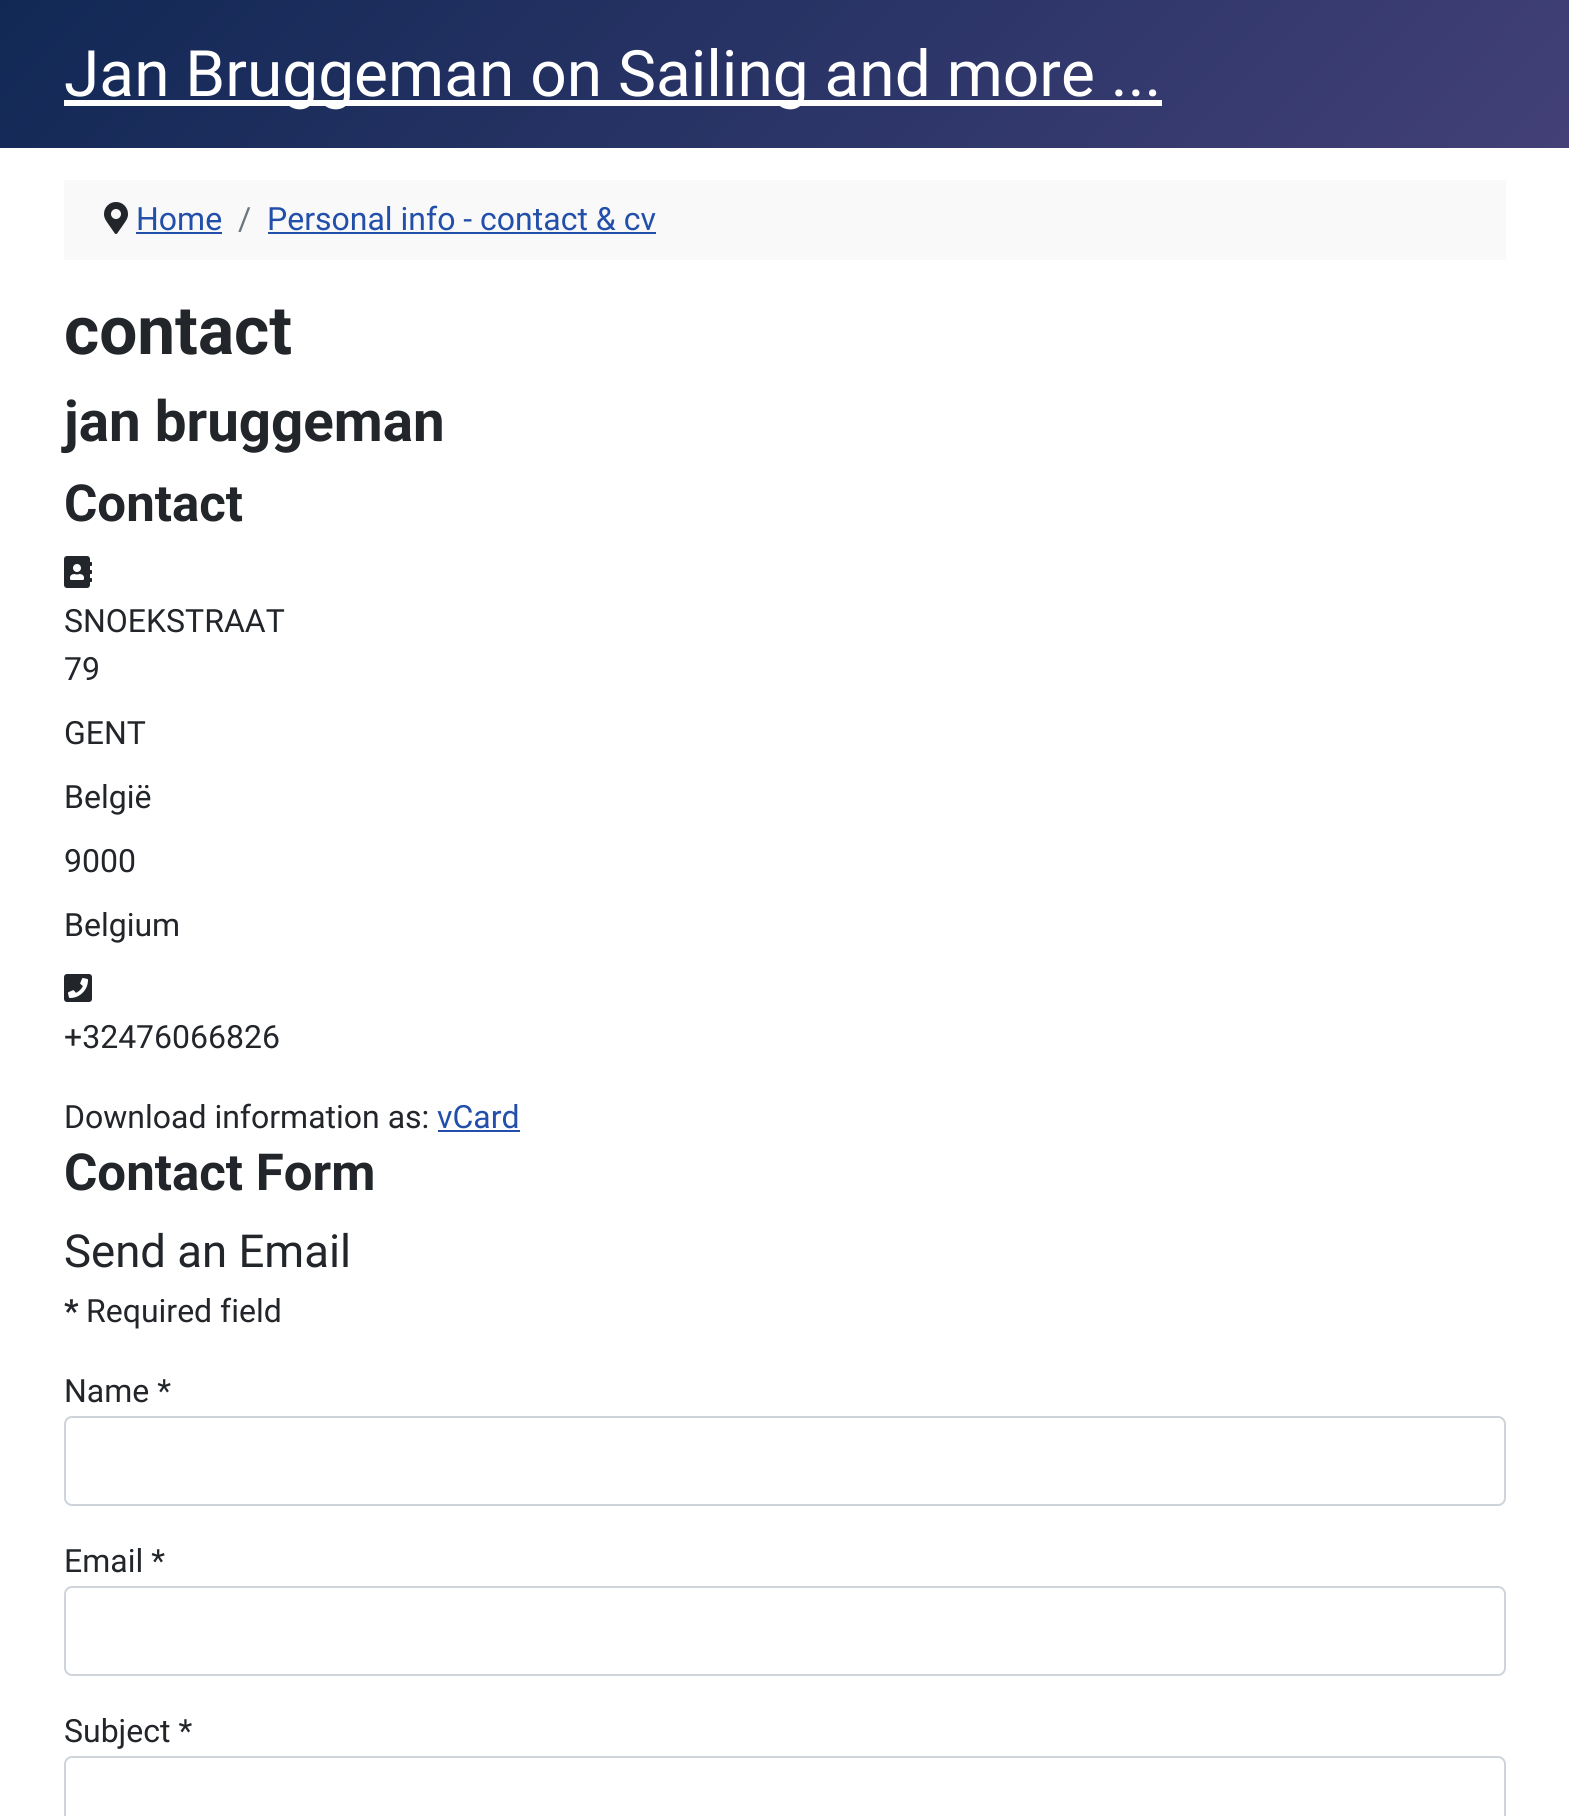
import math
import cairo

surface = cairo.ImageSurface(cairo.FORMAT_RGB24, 1569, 1816)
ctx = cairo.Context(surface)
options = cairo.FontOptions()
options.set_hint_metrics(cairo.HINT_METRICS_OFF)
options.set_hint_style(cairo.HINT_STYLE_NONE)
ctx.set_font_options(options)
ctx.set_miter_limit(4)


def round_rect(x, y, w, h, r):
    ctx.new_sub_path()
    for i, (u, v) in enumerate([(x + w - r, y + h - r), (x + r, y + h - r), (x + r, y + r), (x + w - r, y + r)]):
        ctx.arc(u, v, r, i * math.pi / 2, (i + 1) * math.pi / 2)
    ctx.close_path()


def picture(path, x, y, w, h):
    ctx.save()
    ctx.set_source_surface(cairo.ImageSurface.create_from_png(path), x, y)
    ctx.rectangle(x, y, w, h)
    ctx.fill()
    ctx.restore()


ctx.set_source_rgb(1, 1, 1)
ctx.paint()
gradient = cairo.LinearGradient(355, -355, 1215, 504)
gradient.add_color_stop_rgba(0, 0.067, 0.157, 0.333, 1)
gradient.add_color_stop_rgba(1, 0.259, 0.251, 0.467, 1)
ctx.set_source(gradient)
ctx.rectangle(0, 0, 1569, 148)
ctx.fill()
ctx.set_source_rgb(1, 1, 1)
ctx.rectangle(64, 100, 1098, 6)
ctx.fill()
ctx.select_font_face("Roboto")
ctx.set_font_size(64)
ctx.move_to(64, 96)
ctx.show_text("Jan Bruggeman on Sailing and more ...")
ctx.set_source_rgb(0.973, 0.973, 0.973)
ctx.rectangle(64, 180, 1442, 80)
ctx.fill()
picture("img1.png", 104, 202, 24, 32)
ctx.set_font_size(32)
ctx.set_source_rgb(0.133, 0.31, 0.667)
ctx.move_to(136, 230)
ctx.show_text("Home")
ctx.rectangle(136, 232, 86, 2)
ctx.fill()
ctx.set_source_rgb(0.427, 0.459, 0.494)
ctx.move_to(238, 230)
ctx.show_text("/")
ctx.set_source_rgb(0.133, 0.31, 0.667)
ctx.move_to(267, 230)
ctx.show_text("Personal info - contact & cv")
ctx.rectangle(268, 232, 388, 2)
ctx.fill()
ctx.select_font_face("Roboto", cairo.FONT_SLANT_NORMAL, cairo.FONT_WEIGHT_BOLD)
ctx.set_font_size(67.5)
ctx.set_source_rgb(0.133, 0.149, 0.165)
ctx.move_to(64, 354)
ctx.show_text("contact")
ctx.set_font_size(56.5)
ctx.move_to(64, 441)
ctx.show_text("jan bruggeman")
ctx.set_font_size(51)
ctx.move_to(64, 521)
ctx.show_text("Contact")
picture("img2.png", 64, 556, 28, 32)
ctx.select_font_face("Roboto")
ctx.set_font_size(32)
ctx.move_to(64, 632)
ctx.show_text("SNOEKSTRAAT")
ctx.move_to(64, 680)
ctx.show_text("79")
ctx.move_to(64, 744)
ctx.show_text("GENT")
ctx.move_to(64, 808)
ctx.show_text("België")
ctx.move_to(64, 872)
ctx.show_text("9000")
ctx.move_to(64, 936)
ctx.show_text("Belgium")
picture("img3.png", 64, 974, 28, 28)
ctx.move_to(64, 1048)
ctx.show_text("+32476066826")
ctx.move_to(64, 1128)
ctx.show_text("Download information as:")
ctx.set_source_rgb(0.133, 0.31, 0.667)
ctx.move_to(437, 1128)
ctx.show_text("vCard")
ctx.rectangle(438, 1130, 82, 2)
ctx.fill()
ctx.select_font_face("Roboto", cairo.FONT_SLANT_NORMAL, cairo.FONT_WEIGHT_BOLD)
ctx.set_font_size(51)
ctx.set_source_rgb(0.133, 0.149, 0.165)
ctx.move_to(64, 1190)
ctx.show_text("Contact Form")
ctx.select_font_face("Roboto")
ctx.set_font_size(45.5)
ctx.move_to(64, 1267)
ctx.show_text("Send an Email")
ctx.select_font_face("Roboto", cairo.FONT_SLANT_NORMAL, cairo.FONT_WEIGHT_BOLD)
ctx.set_font_size(32)
ctx.move_to(64, 1322)
ctx.show_text("*")
ctx.select_font_face("Roboto")
ctx.move_to(86, 1322)
ctx.show_text("Required field")
ctx.move_to(64, 1402)
ctx.show_text("Name *")
round_rect(65, 1417, 1440, 88, 7)
ctx.set_source_rgb(0.808, 0.831, 0.855)
ctx.stroke()
ctx.set_source_rgb(0.133, 0.149, 0.165)
ctx.move_to(64, 1572)
ctx.show_text("Email *")
round_rect(65, 1587, 1440, 88, 7)
ctx.set_source_rgb(0.808, 0.831, 0.855)
ctx.stroke()
ctx.set_source_rgb(0.133, 0.149, 0.165)
ctx.move_to(64, 1742)
ctx.show_text("Subject *")
round_rect(65, 1757, 1440, 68, 7)
ctx.set_source_rgb(0.808, 0.831, 0.855)
ctx.stroke()
surface.write_to_png("page.png")
